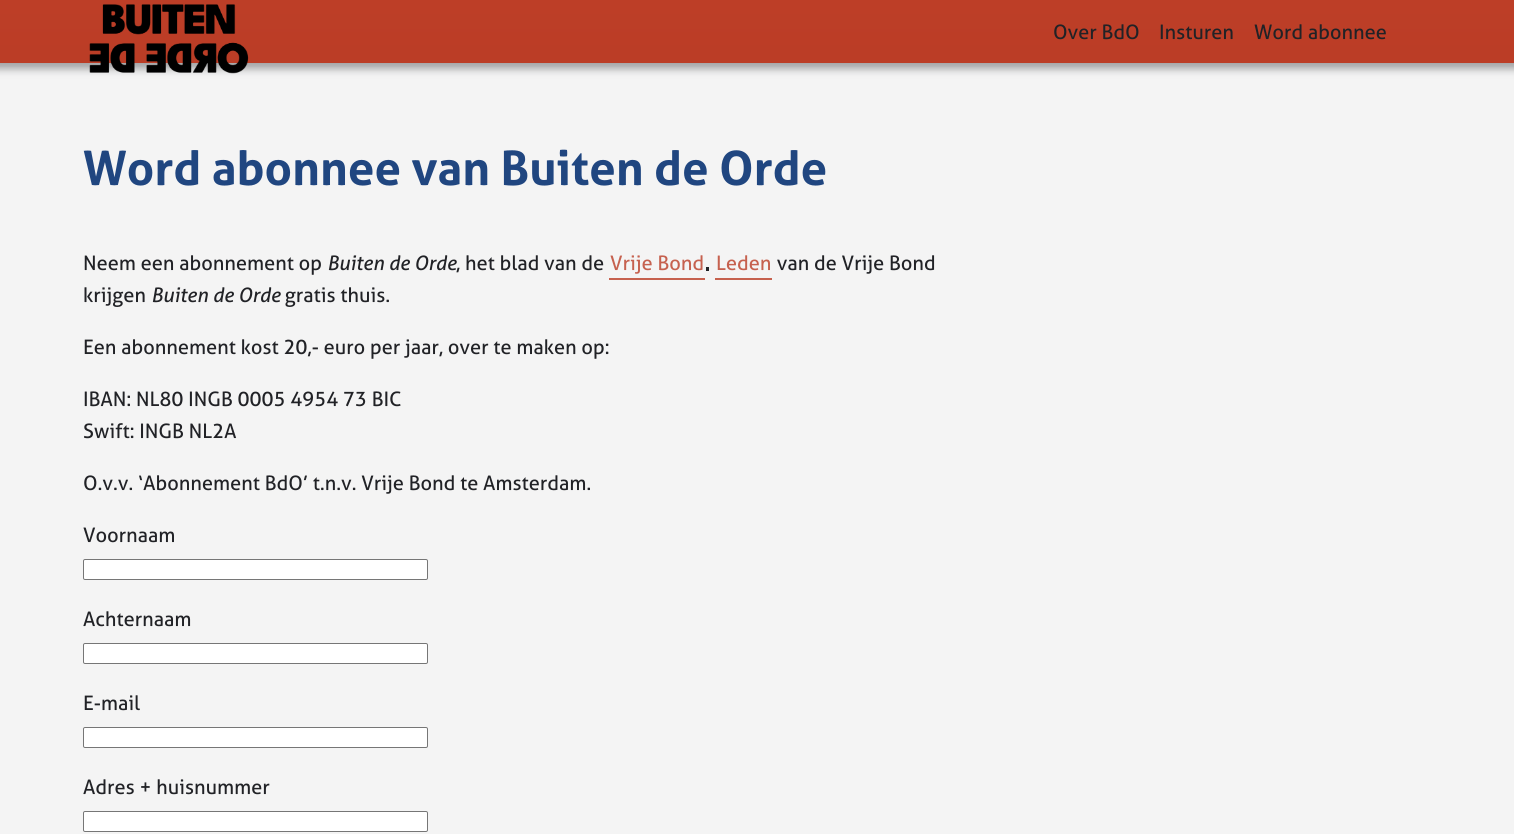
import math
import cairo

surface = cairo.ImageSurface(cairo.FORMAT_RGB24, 1514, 834)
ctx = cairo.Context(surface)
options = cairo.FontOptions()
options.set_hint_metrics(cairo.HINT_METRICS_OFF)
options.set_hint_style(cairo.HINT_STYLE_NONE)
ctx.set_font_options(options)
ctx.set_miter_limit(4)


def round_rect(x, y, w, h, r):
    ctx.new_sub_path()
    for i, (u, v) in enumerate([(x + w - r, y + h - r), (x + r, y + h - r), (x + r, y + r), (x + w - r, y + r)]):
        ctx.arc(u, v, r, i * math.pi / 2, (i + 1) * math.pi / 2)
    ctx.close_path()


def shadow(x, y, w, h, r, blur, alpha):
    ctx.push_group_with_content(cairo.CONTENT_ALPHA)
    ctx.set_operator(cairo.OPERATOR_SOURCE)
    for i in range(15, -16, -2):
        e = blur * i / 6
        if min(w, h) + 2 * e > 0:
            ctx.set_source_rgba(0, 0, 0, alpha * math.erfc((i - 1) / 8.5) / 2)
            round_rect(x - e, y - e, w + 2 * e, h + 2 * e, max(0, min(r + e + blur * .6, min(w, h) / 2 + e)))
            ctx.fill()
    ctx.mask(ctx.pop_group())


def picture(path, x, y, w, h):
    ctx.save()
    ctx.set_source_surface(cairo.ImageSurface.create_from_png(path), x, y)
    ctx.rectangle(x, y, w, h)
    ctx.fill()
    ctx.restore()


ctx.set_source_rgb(0.957, 0.957, 0.957)
ctx.paint()
ctx.set_source_rgb(0.31, 0.314, 0.325)
shadow(-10, -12, 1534, 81, 0, 4, 0.5)
gradient = cairo.LinearGradient(757, 0, 757, 63)
gradient.add_color_stop_rgba(0, 0.741, 0.243, 0.153, 1)
gradient.add_color_stop_rgba(1, 0.733, 0.239, 0.149, 1)
ctx.set_source(gradient)
ctx.rectangle(0, 0, 1514, 63)
ctx.fill()
picture("img1.png", 89, 4, 160, 70)
picture("img2.png", 1054, 24, 85, 16)
picture("img3.png", 1160, 24, 73, 16)
picture("img4.png", 1254, 24, 132, 16)
picture("img5.png", 83, 149, 743, 37)
picture("img6.png", 84, 255, 237, 20)
picture("img7.png", 328, 255, 129, 16)
picture("img8.png", 456, 255, 148, 18)
picture("img9.png", 610, 255, 93, 19)
ctx.set_source_rgb(0.776, 0.38, 0.306)
ctx.rectangle(609, 278, 96, 2)
ctx.fill()
ctx.set_source_rgb(0.129, 0.133, 0.149)
ctx.rectangle(706, 267, 3, 4)
ctx.fill()
picture("img10.png", 717, 255, 53, 16)
ctx.set_source_rgb(0.776, 0.38, 0.306)
ctx.rectangle(715, 278, 57, 2)
ctx.fill()
picture("img11.png", 777, 255, 158, 19)
picture("img12.png", 84, 287, 61, 20)
picture("img7.png", 152, 287, 129, 16)
picture("img13.png", 285, 287, 104, 20)
picture("img14.png", 84, 339, 525, 20)
picture("img15.png", 84, 391, 317, 16)
picture("img16.png", 84, 423, 153, 16)
picture("img17.png", 84, 475, 506, 19)
picture("img18.png", 83, 527, 91, 16)
ctx.set_source_rgb(1, 1, 1)
round_rect(83.5, 559.5, 344, 20, 1.5)
ctx.fill_preserve()
ctx.set_source_rgb(0.463, 0.463, 0.463)
ctx.set_line_width(1)
ctx.stroke()
picture("img19.png", 83, 611, 108, 16)
ctx.set_source_rgb(1, 1, 1)
round_rect(83.5, 643.5, 344, 20, 1.5)
ctx.fill_preserve()
ctx.set_source_rgb(0.463, 0.463, 0.463)
ctx.stroke()
picture("img20.png", 84, 695, 56, 16)
ctx.set_source_rgb(1, 1, 1)
round_rect(83.5, 727.5, 344, 20, 1.5)
ctx.fill_preserve()
ctx.set_source_rgb(0.463, 0.463, 0.463)
ctx.stroke()
picture("img21.png", 83, 779, 187, 16)
ctx.set_source_rgb(1, 1, 1)
round_rect(83.5, 811.5, 344, 20, 1.5)
ctx.fill_preserve()
ctx.set_source_rgb(0.463, 0.463, 0.463)
ctx.stroke()
surface.write_to_png("page.png")
